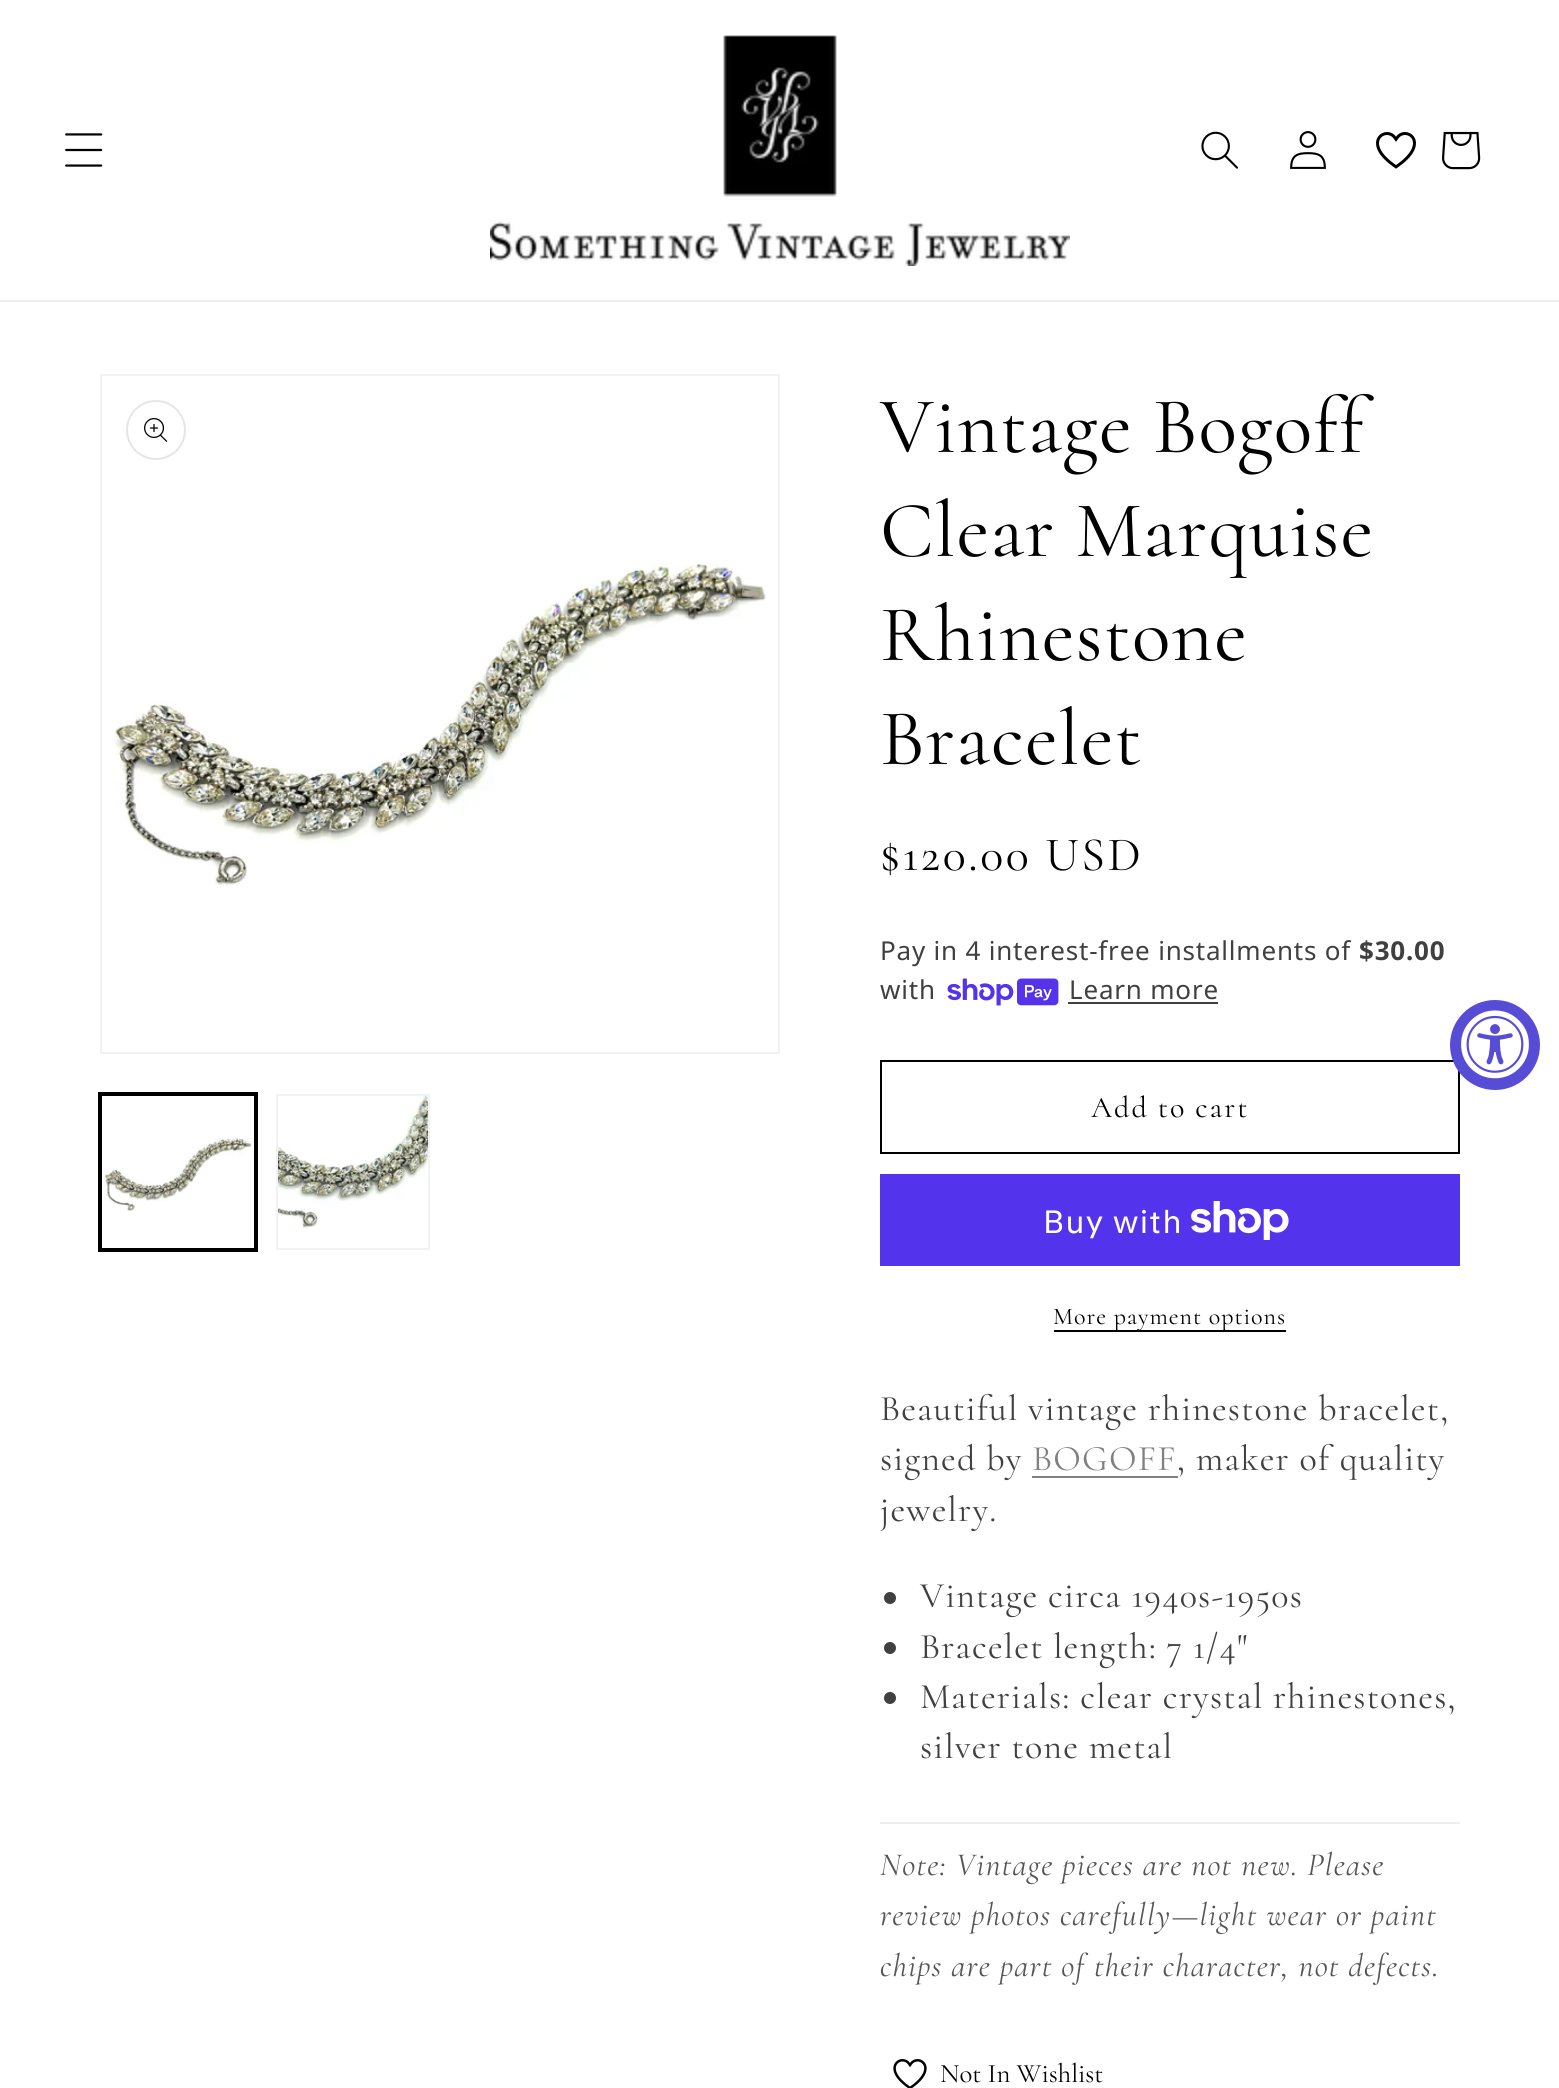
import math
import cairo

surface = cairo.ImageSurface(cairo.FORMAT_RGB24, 1559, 2088)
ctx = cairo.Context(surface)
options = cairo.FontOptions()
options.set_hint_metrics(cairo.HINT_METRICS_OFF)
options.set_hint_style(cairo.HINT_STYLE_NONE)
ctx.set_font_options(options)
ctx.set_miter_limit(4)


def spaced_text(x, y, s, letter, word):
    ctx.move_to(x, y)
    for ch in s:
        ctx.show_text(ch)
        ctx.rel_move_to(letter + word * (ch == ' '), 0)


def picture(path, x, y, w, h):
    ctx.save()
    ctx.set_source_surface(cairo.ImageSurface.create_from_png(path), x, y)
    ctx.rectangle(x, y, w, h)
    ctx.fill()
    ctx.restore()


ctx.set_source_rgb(1, 1, 1)
ctx.paint()
ctx.set_source_rgb(0.922, 0.922, 0.922)
ctx.rectangle(0, 300, 1559, 2)
ctx.fill()
picture("img1.png", 65, 133, 38, 34)
picture("img2.png", 490, 35, 580, 231)
picture("img3.png", 1201, 131, 37, 38)
picture("img4.png", 1290, 131, 36, 38)
picture("img5.png", 1376, 132, 40, 37)
picture("img6.png", 1442, 131, 39, 39)
ctx.rectangle(101, 375, 678, 678)
ctx.set_source_rgb(0.949, 0.949, 0.949)
ctx.stroke()
ctx.arc(156, 430, 29, 0, 2 * math.pi)
ctx.set_source_rgb(0.902, 0.902, 0.902)
ctx.stroke()
picture("img7.png", 144, 418, 24, 24)
picture("img8.png", 114, 564, 653, 323)
ctx.rectangle(99, 1093, 158, 158)
ctx.set_source_rgb(0, 0, 0)
ctx.stroke()
ctx.rectangle(101, 1095, 154, 154)
ctx.stroke()
picture("img9.png", 102, 1137, 150, 75)
ctx.rectangle(277, 1095, 152, 154)
ctx.set_source_rgb(0.949, 0.949, 0.949)
ctx.stroke()
picture("img10.png", 278, 1096, 150, 133)
ctx.select_font_face("Cormorant")
ctx.set_font_size(80)
ctx.set_source_rgb(0, 0, 0)
spaced_text(880, 452, "Vintage Bogoff", 1.2, 0)
spaced_text(880, 556, "Clear Marquise", 1.2, 0)
spaced_text(880, 660, "Rhinestone", 1.2, 0)
spaced_text(880, 764, "Bracelet", 1.2, 0)
ctx.set_font_size(48)
spaced_text(880, 870, "$120.00 USD", 2.6, 0)
ctx.select_font_face("Noto Sans")
ctx.set_font_size(26)
ctx.set_source_rgb(0.251, 0.251, 0.251)
spaced_text(880, 960, "Pay in 4 interest-free installments of", 0.8, 0)
ctx.select_font_face("Noto Sans", cairo.FONT_SLANT_NORMAL, cairo.FONT_WEIGHT_BOLD)
spaced_text(1359, 960, "$30.00", 0.8, 0)
ctx.select_font_face("Noto Sans")
spaced_text(880, 999, "with", 0.8, 0)
picture("img11.png", 947, 978, 112, 28)
spaced_text(1069, 999, "Learn more", 0.8, 0)
ctx.rectangle(1068, 1002, 150, 2)
ctx.fill()
ctx.rectangle(881, 1061, 578, 92)
ctx.set_source_rgb(0, 0, 0)
ctx.stroke()
ctx.select_font_face("Cormorant")
ctx.set_font_size(30)
spaced_text(1091, 1117, "Add to cart", 2, 0)
ctx.set_source_rgb(0.329, 0.2, 0.922)
ctx.rectangle(880, 1174, 580, 92)
ctx.fill()
ctx.select_font_face("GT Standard")
ctx.set_font_size(32)
ctx.set_source_rgb(1, 1, 1)
spaced_text(1043, 1233, "Buy with", 1.2, 0)
picture("img12.png", 1191, 1201, 98, 39)
ctx.set_source_rgb(0, 0, 0)
ctx.rectangle(1054, 1330, 232, 2)
ctx.fill()
ctx.select_font_face("Cormorant")
ctx.set_font_size(24)
spaced_text(1053, 1324, "More payment options", 1, 0)
ctx.set_font_size(36)
ctx.set_source_rgb(0.251, 0.251, 0.251)
spaced_text(880, 1420, "Beautiful vintage rhinestone bracelet,", 1.2, 0)
spaced_text(880, 1470, "signed by", 1.2, 0)
ctx.set_source_rgb(0.502, 0.502, 0.502)
spaced_text(1032, 1470, "BOGOFF", 1.2, 0)
ctx.rectangle(1032, 1476, 146, 2)
ctx.fill()
ctx.set_source_rgb(0.251, 0.251, 0.251)
spaced_text(1177, 1470, ", maker of quality", 1.2, 0)
spaced_text(880, 1521, "jewelry.", 1.2, 0)
ctx.new_path()
ctx.arc(890, 1598, 6, 0, 2 * math.pi)
ctx.fill()
spaced_text(920, 1607, "Vintage circa 1940s-1950s", 1.2, 0)
ctx.new_path()
ctx.arc(890, 1648, 6, 0, 2 * math.pi)
ctx.fill()
spaced_text(920, 1658, "Bracelet length: 7 1/4\"", 1.2, 0)
ctx.new_path()
ctx.arc(890, 1698, 6, 0, 2 * math.pi)
ctx.fill()
spaced_text(920, 1708, "Materials: clear crystal rhinestones,", 1.2, 0)
spaced_text(920, 1758, "silver tone metal", 1.2, 0)
ctx.set_source_rgb(0.933, 0.933, 0.933)
ctx.rectangle(880, 1822, 580, 2)
ctx.fill()
ctx.select_font_face("Cormorant", cairo.FONT_SLANT_ITALIC)
ctx.set_font_size(32.4)
ctx.set_source_rgb(0.333, 0.333, 0.333)
spaced_text(880, 1875, "Note: Vintage pieces are not new. Please", 1.2, 0)
spaced_text(880, 1925, "review photos carefully—light wear or paint", 1.2, 0)
spaced_text(880, 1976, "chips are part of their character, not defects.", 1.2, 0)
picture("img13.png", 893, 2059, 34, 29)
ctx.select_font_face("Cormorant")
ctx.set_font_size(26.75)
ctx.set_source_rgb(0, 0, 0)
ctx.move_to(940, 2082)
ctx.show_text("Not In Wishlist")
ctx.set_source_rgb(0.341, 0.298, 0.835)
ctx.new_path()
ctx.arc(1495, 1045, 45, 0, 2 * math.pi)
ctx.fill()
picture("img14.png", 1461, 1010, 68, 69)
surface.write_to_png("page.png")
